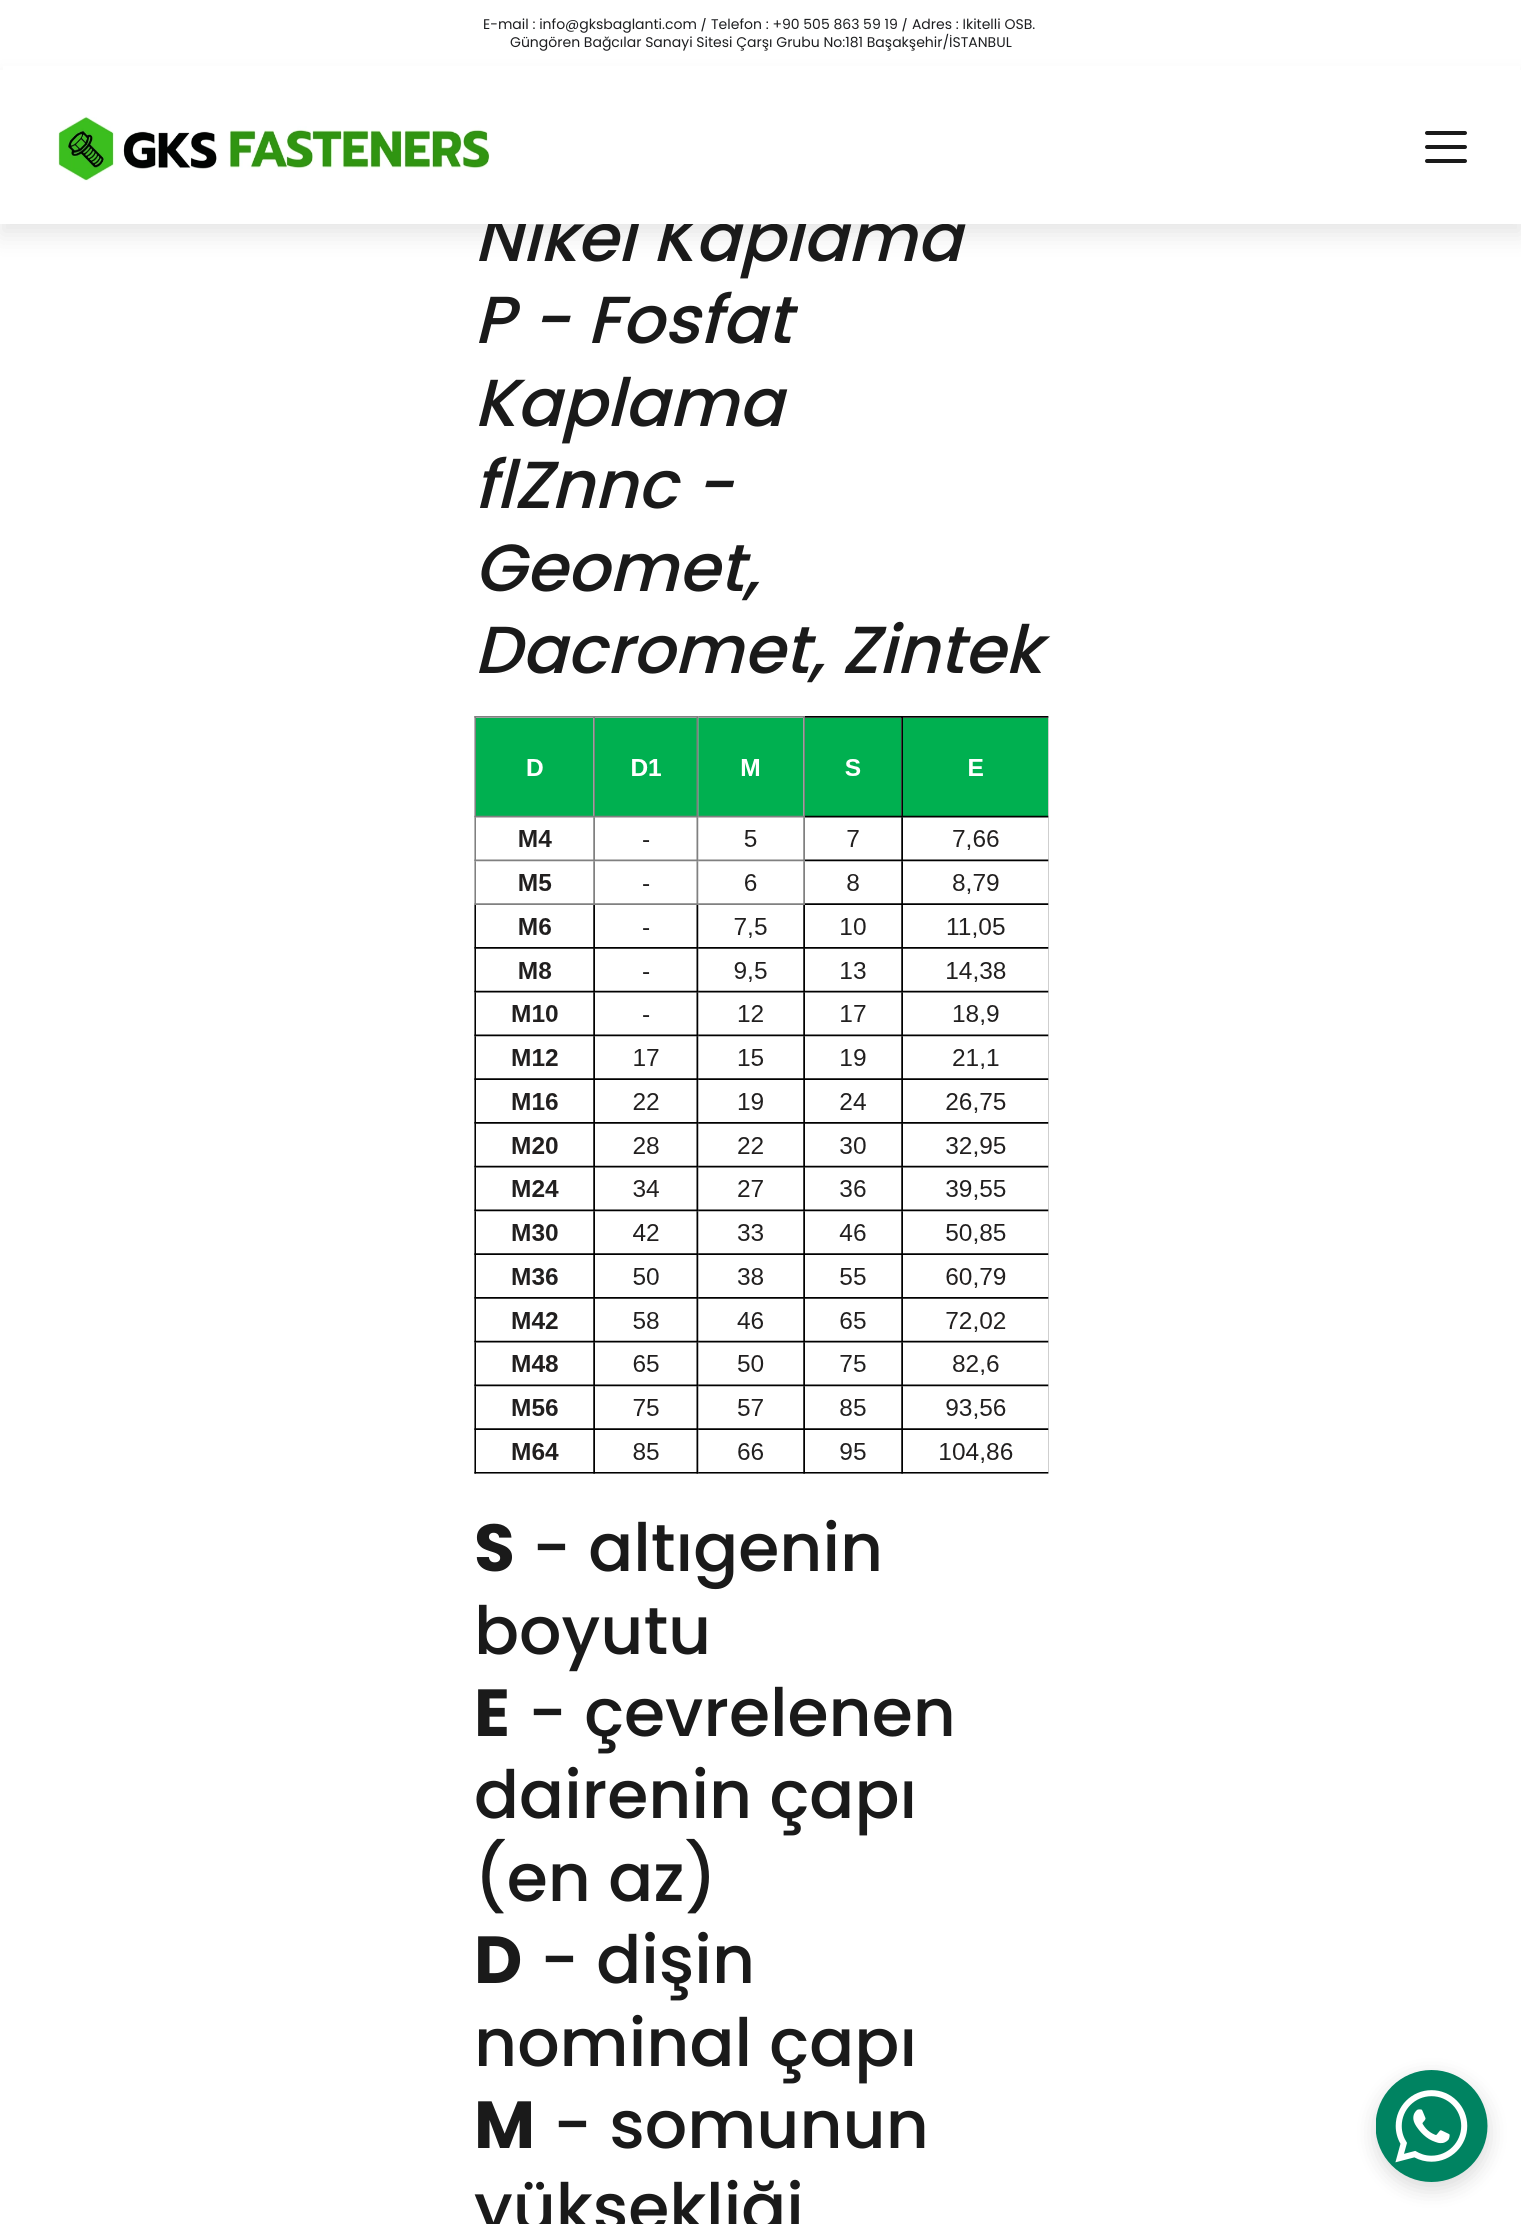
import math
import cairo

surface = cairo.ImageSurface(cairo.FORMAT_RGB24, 1521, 2224)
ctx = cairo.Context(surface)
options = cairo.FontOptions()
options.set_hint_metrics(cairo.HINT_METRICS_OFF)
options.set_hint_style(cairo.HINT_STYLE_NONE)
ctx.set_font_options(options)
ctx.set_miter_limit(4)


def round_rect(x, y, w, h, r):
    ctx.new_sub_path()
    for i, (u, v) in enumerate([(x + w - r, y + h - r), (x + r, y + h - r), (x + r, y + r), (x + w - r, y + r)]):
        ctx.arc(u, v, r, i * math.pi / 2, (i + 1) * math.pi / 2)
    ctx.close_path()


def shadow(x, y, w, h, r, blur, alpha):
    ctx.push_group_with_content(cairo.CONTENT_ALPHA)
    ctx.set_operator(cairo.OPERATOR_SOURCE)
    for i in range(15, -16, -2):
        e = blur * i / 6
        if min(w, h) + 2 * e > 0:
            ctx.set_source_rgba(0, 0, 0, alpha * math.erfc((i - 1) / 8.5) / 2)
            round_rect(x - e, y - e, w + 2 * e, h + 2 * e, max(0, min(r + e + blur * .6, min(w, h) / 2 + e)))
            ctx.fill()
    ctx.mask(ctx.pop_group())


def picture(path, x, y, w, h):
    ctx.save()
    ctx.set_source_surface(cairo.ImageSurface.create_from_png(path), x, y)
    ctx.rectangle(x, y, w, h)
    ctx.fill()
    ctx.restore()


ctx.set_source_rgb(1, 1, 1)
ctx.paint()
ctx.save()
ctx.rectangle(474, 18, 574, 35)
ctx.clip()
ctx.select_font_face("Poppins")
ctx.set_font_size(14)
ctx.set_source_rgb(0.114, 0.118, 0.125)
ctx.move_to(483, 29)
ctx.show_text("E-mail : info@gksbaglanti.com / Telefon : +90 505 863 59 19 / Adres : İkitelli OSB.")
ctx.restore()
ctx.set_source_rgb(0, 0, 0)
shadow(0, 81, 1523, 154, 0, 12, 0.1)
ctx.select_font_face("Poppins")
ctx.set_font_size(14)
ctx.set_source_rgb(0.114, 0.118, 0.125)
ctx.move_to(510, 47)
ctx.show_text("Güngören Bağcılar Sanayi Sitesi Çarşı Grubu No:181 Başakşehir/İSTANBUL")
ctx.set_source_rgb(1, 1, 1)
ctx.rectangle(3, 66, 1517, 4)
ctx.fill()
ctx.select_font_face("Poppins Medium", cairo.FONT_SLANT_ITALIC)
ctx.set_font_size(66.5)
ctx.set_source_rgb(0.102, 0.102, 0.102)
ctx.move_to(474, 261)
ctx.show_text("Nikel Kaplama")
ctx.set_source_rgb(1, 1, 1)
ctx.rectangle(0, 70, 1521, 154)
ctx.fill()
picture("img1.png", 58, 116, 432, 65)
ctx.set_source_rgb(0.102, 0.102, 0.102)
round_rect(1425, 131, 42, 4, 2)
ctx.fill()
round_rect(1425, 145, 42, 4, 2)
ctx.fill()
round_rect(1425, 159, 42, 4, 2)
ctx.fill()
ctx.move_to(474, 343)
ctx.show_text("P - Fosfat")
ctx.move_to(474, 426)
ctx.show_text("Kaplama")
ctx.move_to(474, 508)
ctx.show_text("flZnnc -")
ctx.move_to(474, 591)
ctx.show_text("Geomet,")
ctx.move_to(474, 673)
ctx.show_text("Dacromet, Zintek")
picture("img2.png", 474, 716, 575, 758)
ctx.select_font_face("Poppins", cairo.FONT_SLANT_NORMAL, cairo.FONT_WEIGHT_BOLD)
ctx.move_to(474, 1571)
ctx.show_text("S")
ctx.select_font_face("Poppins Medium")
ctx.move_to(532, 1571)
ctx.show_text("- altıgenin")
ctx.move_to(474, 1654)
ctx.show_text("boyutu")
ctx.select_font_face("Poppins", cairo.FONT_SLANT_NORMAL, cairo.FONT_WEIGHT_BOLD)
ctx.move_to(474, 1736)
ctx.show_text("E")
ctx.select_font_face("Poppins Medium")
ctx.move_to(528, 1736)
ctx.show_text("- çevrelenen")
ctx.move_to(474, 1818)
ctx.show_text("dairenin çapı")
ctx.move_to(474, 1901)
ctx.show_text("(en az)")
ctx.select_font_face("Poppins", cairo.FONT_SLANT_NORMAL, cairo.FONT_WEIGHT_BOLD)
ctx.move_to(474, 1983)
ctx.show_text("D")
ctx.select_font_face("Poppins Medium")
ctx.move_to(540, 1983)
ctx.show_text("- dişin")
ctx.move_to(474, 2066)
ctx.show_text("nominal çapı")
ctx.select_font_face("Poppins", cairo.FONT_SLANT_NORMAL, cairo.FONT_WEIGHT_BOLD)
ctx.move_to(474, 2148)
ctx.show_text("M")
ctx.select_font_face("Poppins Medium")
ctx.move_to(553, 2148)
ctx.show_text("- somunun")
ctx.move_to(474, 2231)
ctx.show_text("yüksekliği")
ctx.set_source_rgb(0, 0, 0)
shadow(1376, 2077, 112, 112, 56, 10.5, 0.15)
picture("img3.png", 1376, 2070, 112, 112)
surface.write_to_png("page.png")
